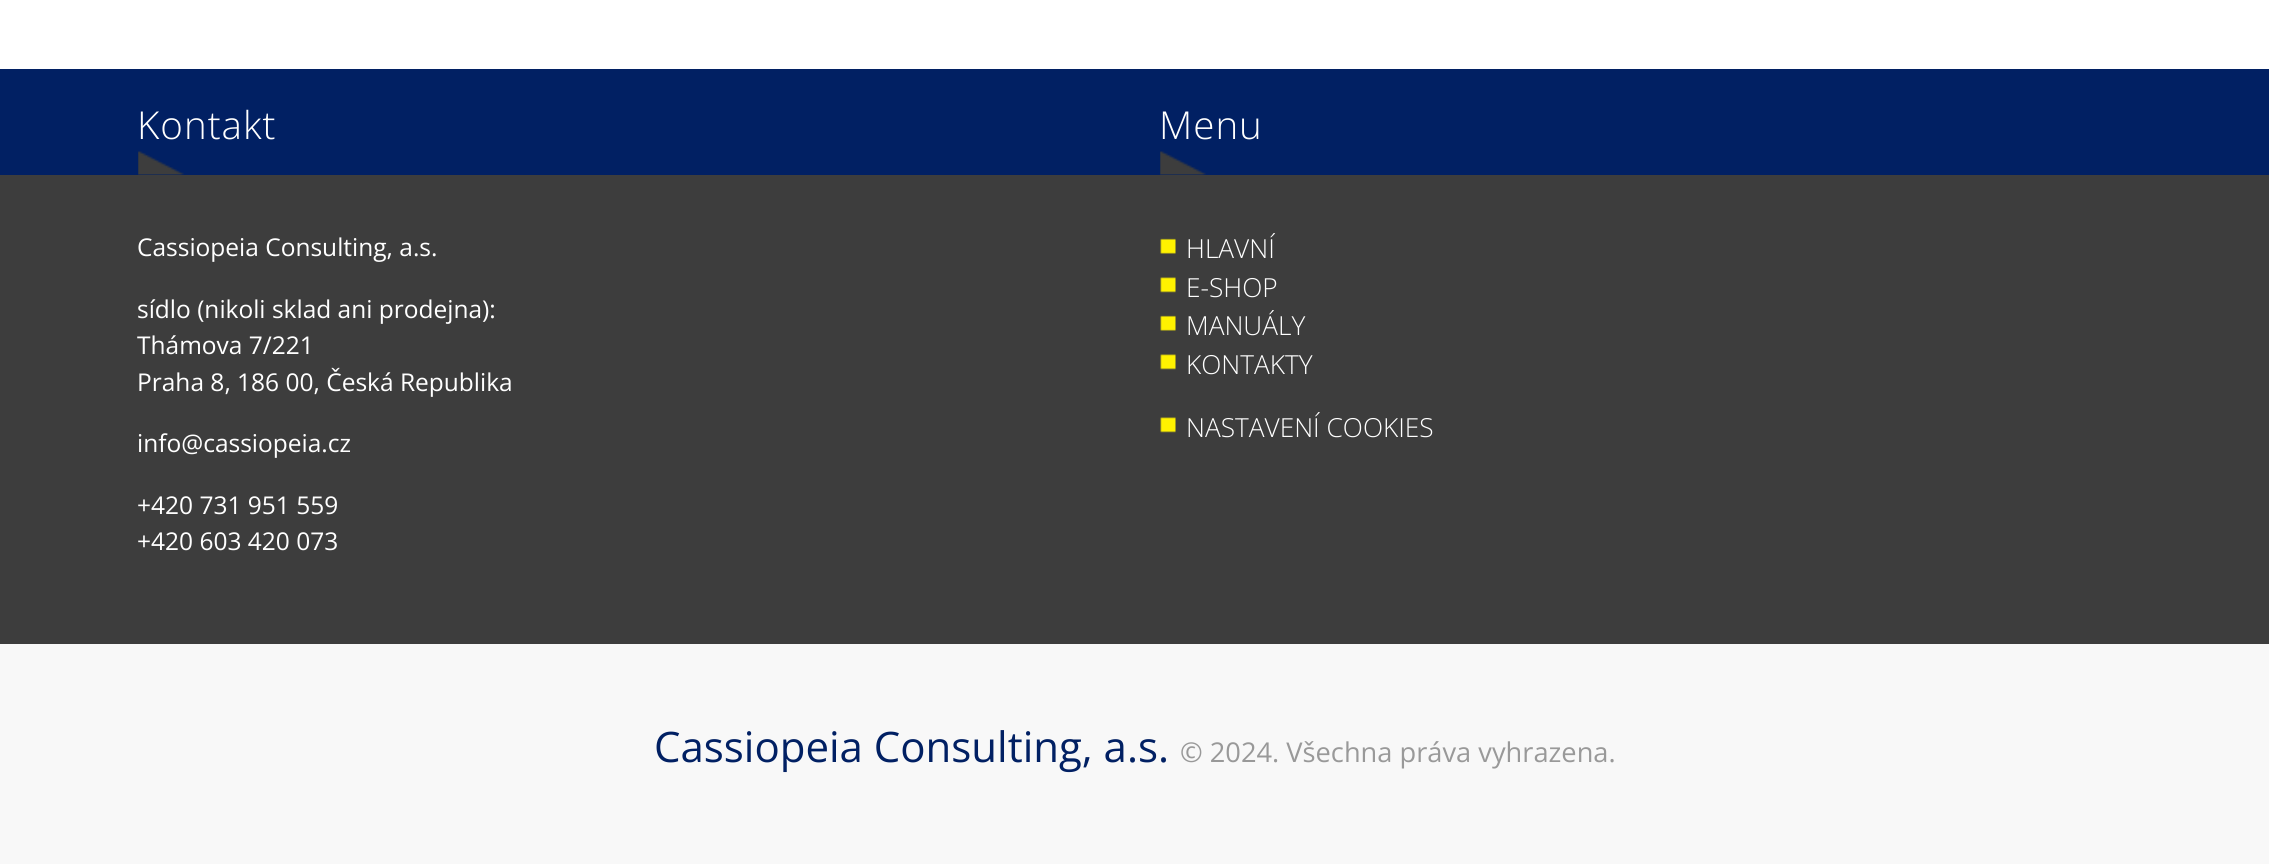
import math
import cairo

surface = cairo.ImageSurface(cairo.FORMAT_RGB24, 2269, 864)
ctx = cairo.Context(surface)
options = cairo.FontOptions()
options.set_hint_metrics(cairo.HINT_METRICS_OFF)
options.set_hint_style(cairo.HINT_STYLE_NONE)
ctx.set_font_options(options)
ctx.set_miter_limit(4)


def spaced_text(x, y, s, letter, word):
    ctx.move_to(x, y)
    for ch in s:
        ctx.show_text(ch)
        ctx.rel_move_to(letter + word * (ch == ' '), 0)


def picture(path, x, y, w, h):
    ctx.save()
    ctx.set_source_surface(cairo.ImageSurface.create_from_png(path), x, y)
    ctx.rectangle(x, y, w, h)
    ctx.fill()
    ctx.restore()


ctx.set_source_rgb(1, 1, 1)
ctx.paint()
ctx.set_source_rgb(0.239, 0.239, 0.239)
ctx.rectangle(0, 175, 2269, 469)
ctx.fill()
ctx.set_source_rgb(0.004, 0.125, 0.388)
ctx.rectangle(0, 69, 2269, 106)
ctx.fill()
picture("img1.png", 138, 151, 46, 24)
ctx.select_font_face("Open Sans Light")
ctx.set_font_size(38.5)
ctx.set_source_rgb(1, 1, 1)
spaced_text(137, 139, "Kontakt", 1, 0)
ctx.select_font_face("Open Sans")
ctx.set_font_size(24.5)
ctx.move_to(137, 256)
ctx.show_text("Cassiopeia Consulting, a.s.")
ctx.move_to(137, 318)
ctx.show_text("sídlo (nikoli sklad ani prodejna):")
ctx.move_to(137, 354)
ctx.show_text("Thámova 7/221")
ctx.move_to(137, 391)
ctx.show_text("Praha 8, 186 00, Česká Republika")
ctx.move_to(137, 452)
ctx.show_text("info@cassiopeia.cz")
ctx.move_to(137, 514)
ctx.show_text("+420 731 951 559")
ctx.move_to(137, 550)
ctx.show_text("+420 603 420 073")
picture("img1.png", 1160, 151, 46, 24)
ctx.select_font_face("Open Sans Light")
ctx.set_font_size(38.5)
spaced_text(1159, 139, "Menu", 1, 0)
picture("img2.png", 1160, 238, 16, 16)
ctx.set_font_size(26.25)
ctx.move_to(1186, 258)
ctx.show_text("HLAVNÍ")
picture("img3.png", 1160, 277, 16, 16)
ctx.move_to(1186, 297)
ctx.show_text("E-SHOP")
picture("img2.png", 1160, 315, 16, 16)
ctx.move_to(1186, 335)
ctx.show_text("MANUÁLY")
picture("img3.png", 1160, 354, 16, 16)
ctx.move_to(1186, 374)
ctx.show_text("KONTAKTY")
picture("img3.png", 1160, 417, 16, 16)
ctx.move_to(1186, 437)
ctx.show_text("NASTAVENÍ COOKIES")
ctx.set_source_rgb(0.969, 0.969, 0.969)
ctx.rectangle(0, 644, 2269, 220)
ctx.fill()
ctx.select_font_face("Open Sans")
ctx.set_font_size(42)
ctx.set_source_rgb(0.004, 0.125, 0.388)
ctx.move_to(654, 762)
ctx.show_text("Cassiopeia Consulting, a.s.")
ctx.set_font_size(27.25)
ctx.set_source_rgb(0.6, 0.6, 0.6)
ctx.move_to(1180, 762)
ctx.show_text("© 2024. Všechna práva vyhrazena.")
surface.write_to_png("page.png")
